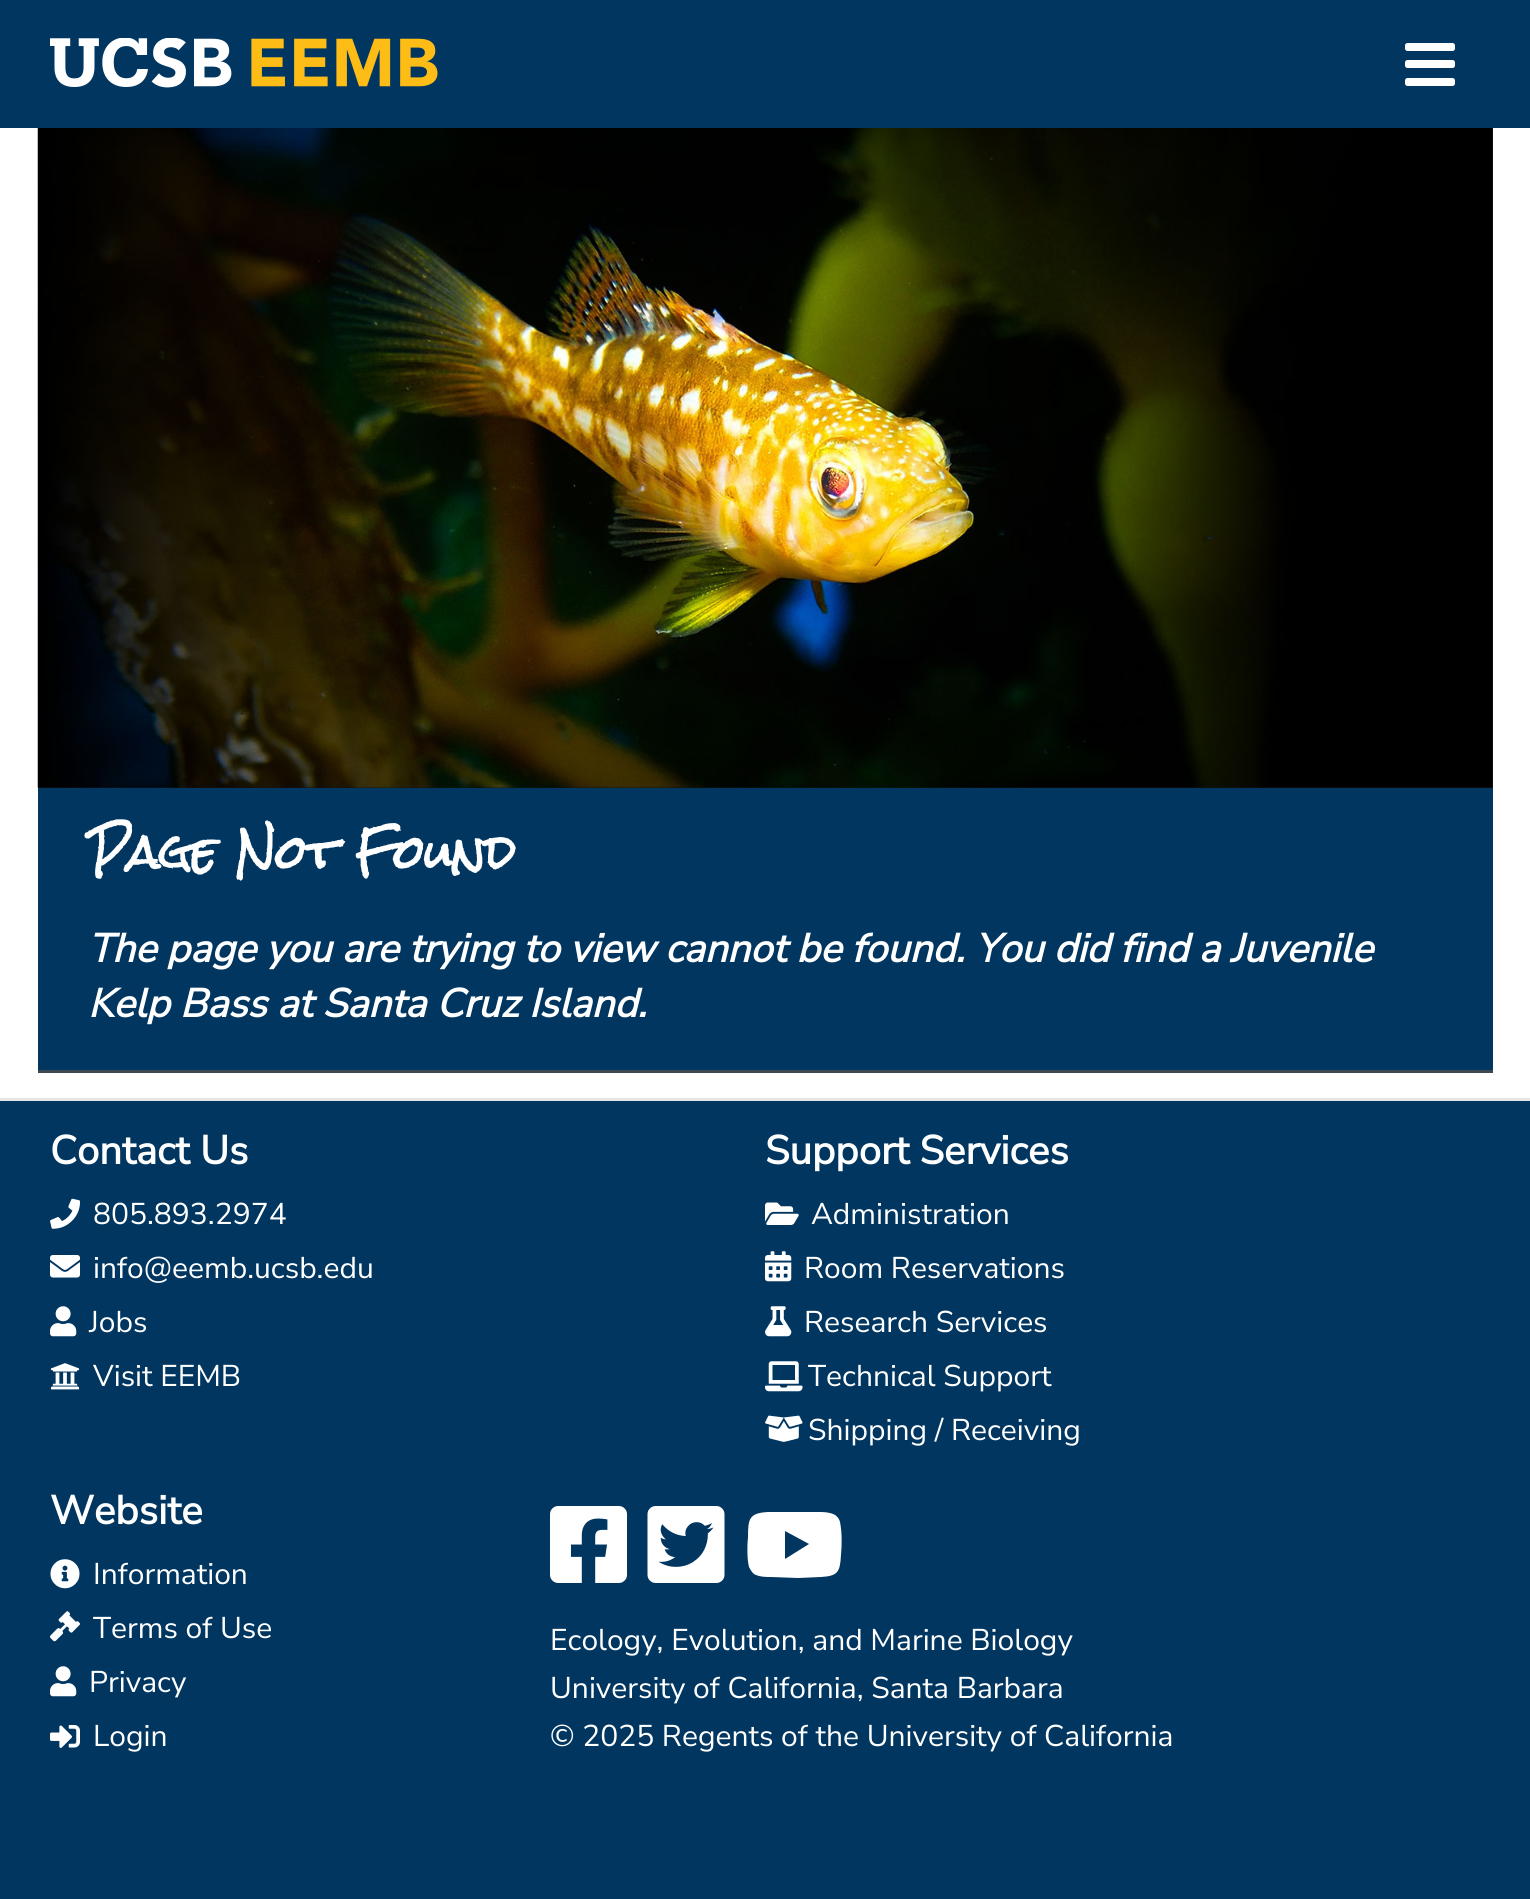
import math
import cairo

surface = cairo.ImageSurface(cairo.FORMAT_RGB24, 1530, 1899)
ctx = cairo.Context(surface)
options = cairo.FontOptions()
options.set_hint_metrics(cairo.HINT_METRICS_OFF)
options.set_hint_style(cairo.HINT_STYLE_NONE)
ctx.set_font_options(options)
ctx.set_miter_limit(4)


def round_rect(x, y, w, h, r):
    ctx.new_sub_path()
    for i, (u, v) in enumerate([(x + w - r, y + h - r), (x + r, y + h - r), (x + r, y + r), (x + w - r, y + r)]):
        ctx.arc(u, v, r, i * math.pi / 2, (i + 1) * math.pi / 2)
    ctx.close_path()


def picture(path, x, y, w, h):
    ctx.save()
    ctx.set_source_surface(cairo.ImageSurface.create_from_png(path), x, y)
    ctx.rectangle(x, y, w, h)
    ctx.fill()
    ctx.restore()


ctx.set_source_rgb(0, 0.212, 0.376)
ctx.paint()
picture("img1.png", 50, 38, 388, 50)
ctx.set_source_rgb(1, 1, 1)
round_rect(1405, 43, 50, 8, 2.5)
ctx.fill()
round_rect(1405, 60, 50, 8, 2.5)
ctx.fill()
round_rect(1405, 78, 50, 8, 2.5)
ctx.fill()
ctx.rectangle(0, 128, 1530, 970)
ctx.fill()
ctx.set_source_rgb(0.067, 0.082, 0.09)
ctx.rectangle(38, 128, 1455, 660)
ctx.fill()
ctx.set_source_rgb(0.239, 0.286, 0.322)
ctx.rectangle(38, 1070, 1455, 3)
ctx.fill()
picture("img2.png", 37, 128, 1456, 660)
ctx.set_source_rgb(0, 0.212, 0.376)
ctx.rectangle(38, 788, 1455, 282)
ctx.fill()
ctx.select_font_face("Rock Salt", cairo.FONT_SLANT_NORMAL, cairo.FONT_WEIGHT_BOLD)
ctx.set_font_size(44)
ctx.set_source_rgb(1, 1, 1)
ctx.move_to(88, 870)
ctx.show_text("Page Not Found")
ctx.select_font_face("Nunito Sans", cairo.FONT_SLANT_ITALIC, cairo.FONT_WEIGHT_BOLD)
ctx.set_font_size(40)
ctx.move_to(88, 962)
ctx.show_text("The page you are trying to view cannot be found. You did find a Juvenile")
ctx.move_to(88, 1017)
ctx.show_text("Kelp Bass at Santa Cruz Island.")
ctx.set_source_rgb(0.898, 0.898, 0.898)
ctx.rectangle(0, 1098, 1530, 3)
ctx.fill()
ctx.select_font_face("Nunito Sans", cairo.FONT_SLANT_NORMAL, cairo.FONT_WEIGHT_BOLD)
ctx.set_source_rgb(1, 1, 1)
ctx.move_to(50, 1164)
ctx.show_text("Contact Us")
picture("img3.png", 50, 1198, 31, 31)
ctx.select_font_face("Nunito Sans ExtraLight")
ctx.set_font_size(30)
ctx.move_to(93, 1224)
ctx.show_text("805.893.2974")
picture("img4.png", 50, 1255, 30, 23)
ctx.move_to(93, 1278)
ctx.show_text("info@eemb.ucsb.edu")
picture("img5.png", 50, 1306, 27, 31)
ctx.move_to(89, 1332)
ctx.show_text("Jobs")
picture("img6.png", 50, 1363, 30, 27)
ctx.move_to(93, 1386)
ctx.show_text("Visit EEMB")
ctx.select_font_face("Nunito Sans", cairo.FONT_SLANT_NORMAL, cairo.FONT_WEIGHT_BOLD)
ctx.set_font_size(40)
ctx.move_to(765, 1164)
ctx.show_text("Support Services")
picture("img7.png", 765, 1202, 34, 23)
ctx.select_font_face("Nunito Sans ExtraLight")
ctx.set_font_size(30)
ctx.move_to(811, 1224)
ctx.show_text("Administration")
picture("img8.png", 765, 1251, 27, 31)
ctx.move_to(804, 1278)
ctx.show_text("Room Reservations")
picture("img9.png", 765, 1306, 27, 31)
ctx.move_to(804, 1332)
ctx.show_text("Research Services")
picture("img10.png", 765, 1361, 38, 31)
ctx.move_to(808, 1386)
ctx.show_text("Technical Support")
picture("img11.png", 765, 1415, 38, 27)
ctx.move_to(808, 1440)
ctx.show_text("Shipping / Receiving")
ctx.select_font_face("Nunito Sans", cairo.FONT_SLANT_NORMAL, cairo.FONT_WEIGHT_BOLD)
ctx.set_font_size(40)
ctx.move_to(50, 1524)
ctx.show_text("Website")
picture("img12.png", 50, 1559, 30, 30)
ctx.select_font_face("Nunito Sans ExtraLight")
ctx.set_font_size(30)
ctx.move_to(93, 1584)
ctx.show_text("Information")
picture("img13.png", 50, 1611, 30, 31)
ctx.move_to(93, 1638)
ctx.show_text("Terms of Use")
picture("img5.png", 50, 1666, 27, 31)
ctx.move_to(89, 1692)
ctx.show_text("Privacy")
picture("img14.png", 50, 1725, 30, 23)
ctx.move_to(93, 1746)
ctx.show_text("Login")
picture("img15.png", 550, 1506, 77, 77)
picture("img16.png", 647, 1506, 78, 77)
ctx.new_path()
ctx.move_to(840, 1522)
ctx.curve_to(842, 1532, 842, 1544, 841, 1555)
ctx.curve_to(840, 1572, 838, 1576, 821, 1577)
ctx.line_to(798, 1578)
ctx.line_to(771, 1577)
ctx.curve_to(766, 1577, 761, 1577, 756, 1575)
ctx.curve_to(753, 1574, 751, 1571, 749, 1567)
ctx.curve_to(747, 1559, 747, 1546, 748, 1537)
ctx.curve_to(748, 1519, 749, 1513, 768, 1512)
ctx.line_to(793, 1512)
ctx.line_to(818, 1512)
ctx.curve_to(823, 1512, 828, 1512, 833, 1514)
ctx.curve_to(836, 1515, 839, 1518, 840, 1522)
ctx.close_path()
ctx.move_to(785, 1559)
ctx.line_to(809, 1544)
ctx.line_to(785, 1531)
ctx.close_path()
ctx.fill()
ctx.move_to(550, 1650)
ctx.show_text("Ecology, Evolution, and Marine Biology")
ctx.move_to(550, 1698)
ctx.show_text("University of California, Santa Barbara")
ctx.move_to(550, 1746)
ctx.show_text("© 2025 Regents of the University of California")
surface.write_to_png("page.png")
